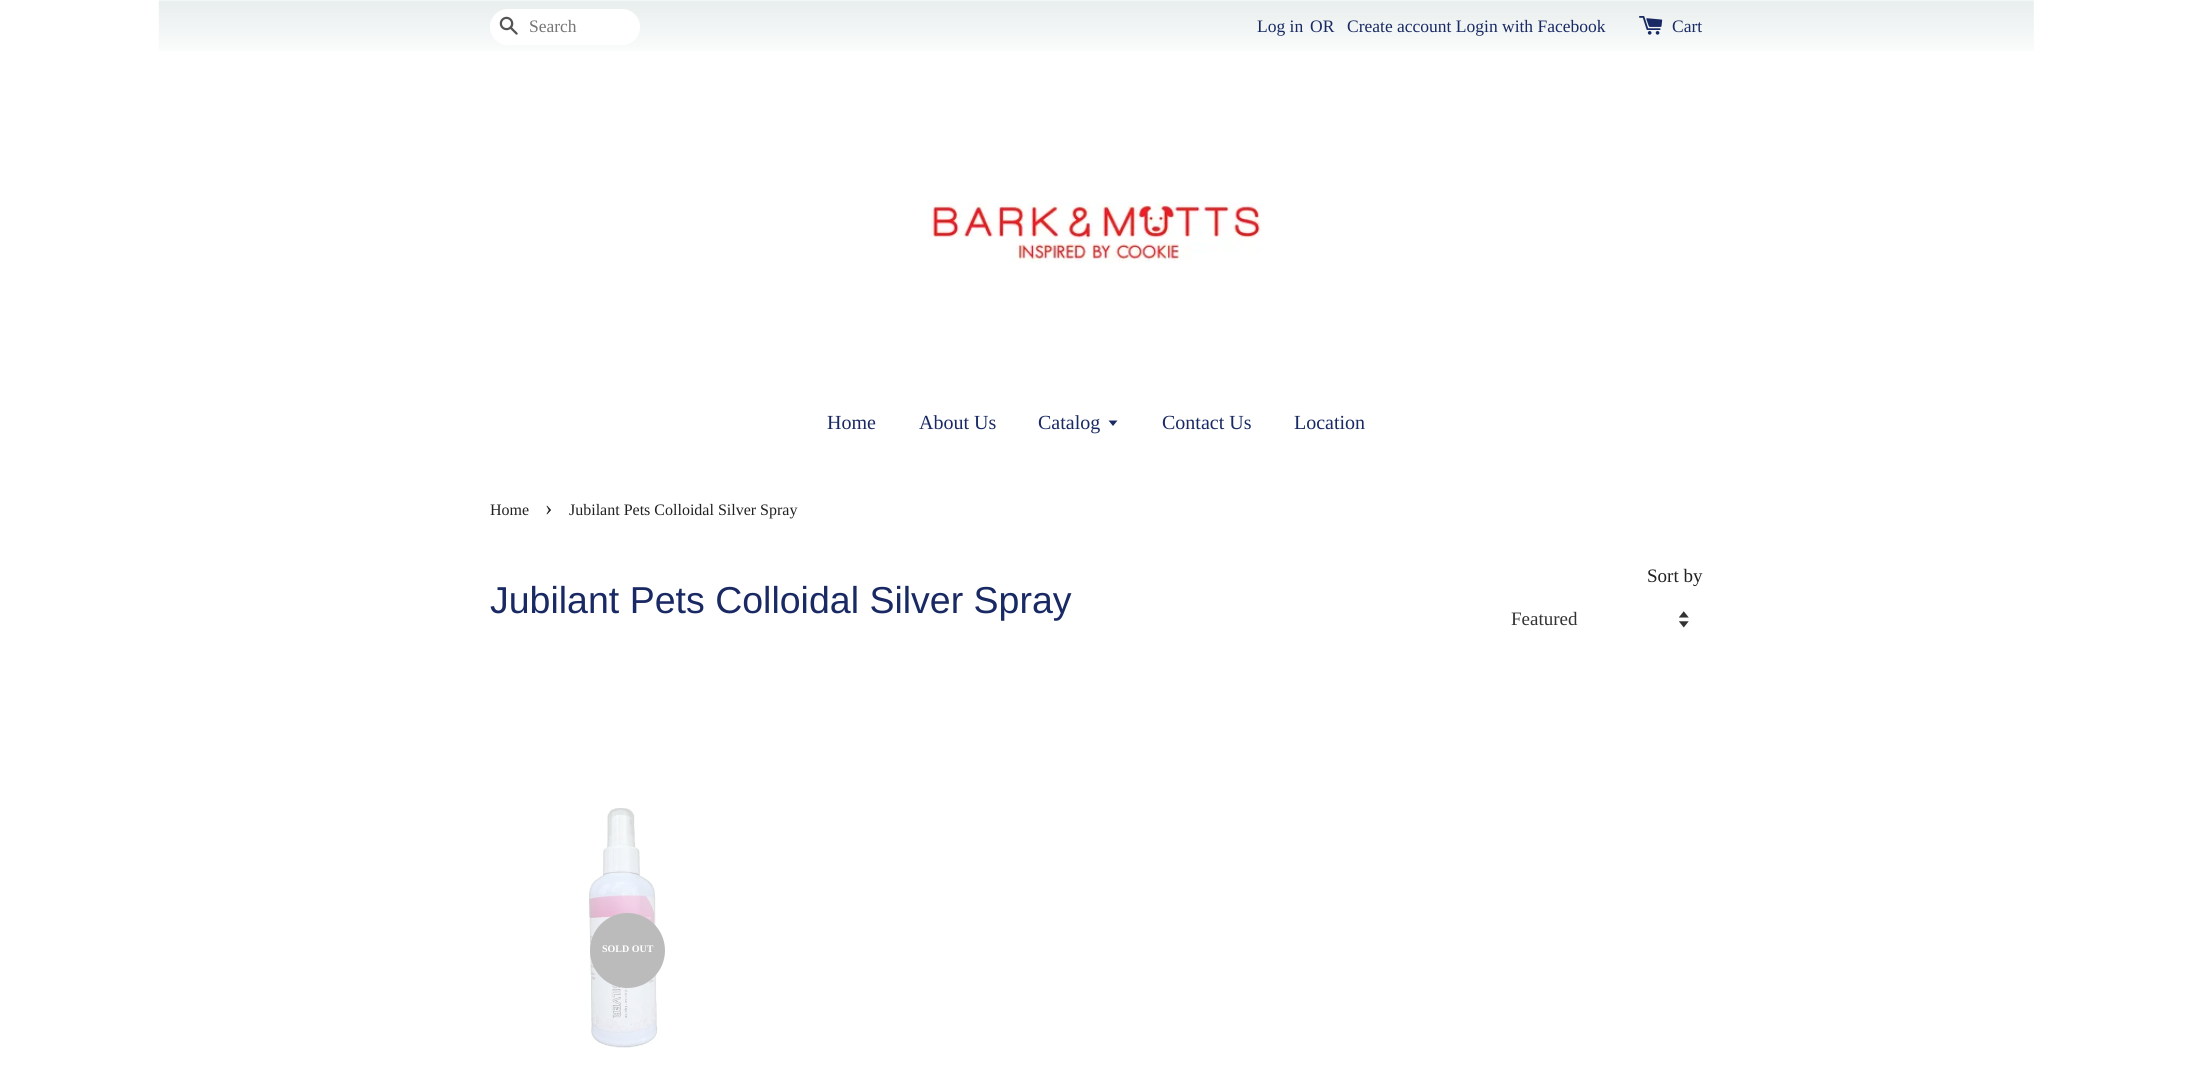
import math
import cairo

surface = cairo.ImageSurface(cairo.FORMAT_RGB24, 2192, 1069)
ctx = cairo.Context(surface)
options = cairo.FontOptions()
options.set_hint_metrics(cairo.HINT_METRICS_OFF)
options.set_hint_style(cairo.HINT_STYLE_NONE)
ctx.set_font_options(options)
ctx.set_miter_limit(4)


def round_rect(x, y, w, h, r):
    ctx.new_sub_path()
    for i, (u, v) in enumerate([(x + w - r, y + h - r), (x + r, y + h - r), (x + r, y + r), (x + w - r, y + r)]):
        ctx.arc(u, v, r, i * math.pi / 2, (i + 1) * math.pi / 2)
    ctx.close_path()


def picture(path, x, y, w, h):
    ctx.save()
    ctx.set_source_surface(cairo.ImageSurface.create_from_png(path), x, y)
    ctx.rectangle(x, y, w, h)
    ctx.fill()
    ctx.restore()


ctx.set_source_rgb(1, 1, 1)
ctx.paint()
picture("img1.png", 158, 0, 1876, 51)
ctx.set_source_rgb(1, 1, 1)
round_rect(490, 9, 150, 36, 18)
ctx.fill()
picture("img2.png", 499, 16, 19, 19)
ctx.select_font_face("Liberation Serif")
ctx.set_font_size(17.5)
ctx.set_source_rgb(0.459, 0.459, 0.459)
ctx.move_to(529, 32)
ctx.show_text("Search")
ctx.set_source_rgb(0.098, 0.161, 0.388)
ctx.move_to(1257, 32)
ctx.show_text("Log in")
ctx.move_to(1310, 32)
ctx.show_text("OR")
ctx.move_to(1347, 32)
ctx.show_text("Create account Login with Facebook")
picture("img3.png", 1639, 16, 24, 19)
ctx.move_to(1672, 32)
ctx.show_text("Cart")
picture("img4.png", 926, 202, 335, 61)
ctx.set_font_size(20)
ctx.move_to(827, 429)
ctx.show_text("Home")
ctx.move_to(919, 429)
ctx.show_text("About Us")
ctx.move_to(1038, 429)
ctx.show_text("Catalog")
ctx.new_path()
ctx.move_to(1108.5, 420.5)
ctx.line_to(1113, 426)
ctx.line_to(1117.5, 420.5)
ctx.close_path()
ctx.fill()
ctx.move_to(1162, 429)
ctx.show_text("Contact Us")
ctx.move_to(1294, 429)
ctx.show_text("Location")
ctx.set_font_size(16)
ctx.set_source_rgb(0.129, 0.129, 0.129)
ctx.move_to(490, 515)
ctx.show_text("Home")
ctx.set_font_size(22)
ctx.move_to(545, 515)
ctx.show_text("›")
ctx.set_font_size(16)
ctx.move_to(569, 515)
ctx.show_text("Jubilant Pets Colloidal Silver Spray")
ctx.select_font_face("Liberation Sans")
ctx.set_font_size(37.5)
ctx.set_source_rgb(0.098, 0.161, 0.388)
ctx.move_to(490, 613)
ctx.show_text("Jubilant Pets Colloidal Silver Spray")
ctx.select_font_face("Liberation Serif")
ctx.set_font_size(19)
ctx.set_source_rgb(0.129, 0.129, 0.129)
ctx.move_to(1647, 582)
ctx.show_text("Sort by")
picture("img5.png", 1679, 611, 10, 17)
ctx.set_source_rgb(0.2, 0.2, 0.2)
ctx.move_to(1511, 625)
ctx.show_text("Featured")
picture("img6.png", 589, 808, 69, 240)
ctx.set_source_rgb(0.733, 0.733, 0.733)
ctx.arc(627.5, 950.5, 37.5, 0, 2 * math.pi)
ctx.fill()
ctx.select_font_face("Liberation Serif", cairo.FONT_SLANT_NORMAL, cairo.FONT_WEIGHT_BOLD)
ctx.set_font_size(10)
ctx.set_source_rgb(1, 1, 1)
ctx.move_to(602, 952)
ctx.show_text("SOLD OUT")
surface.write_to_png("page.png")
